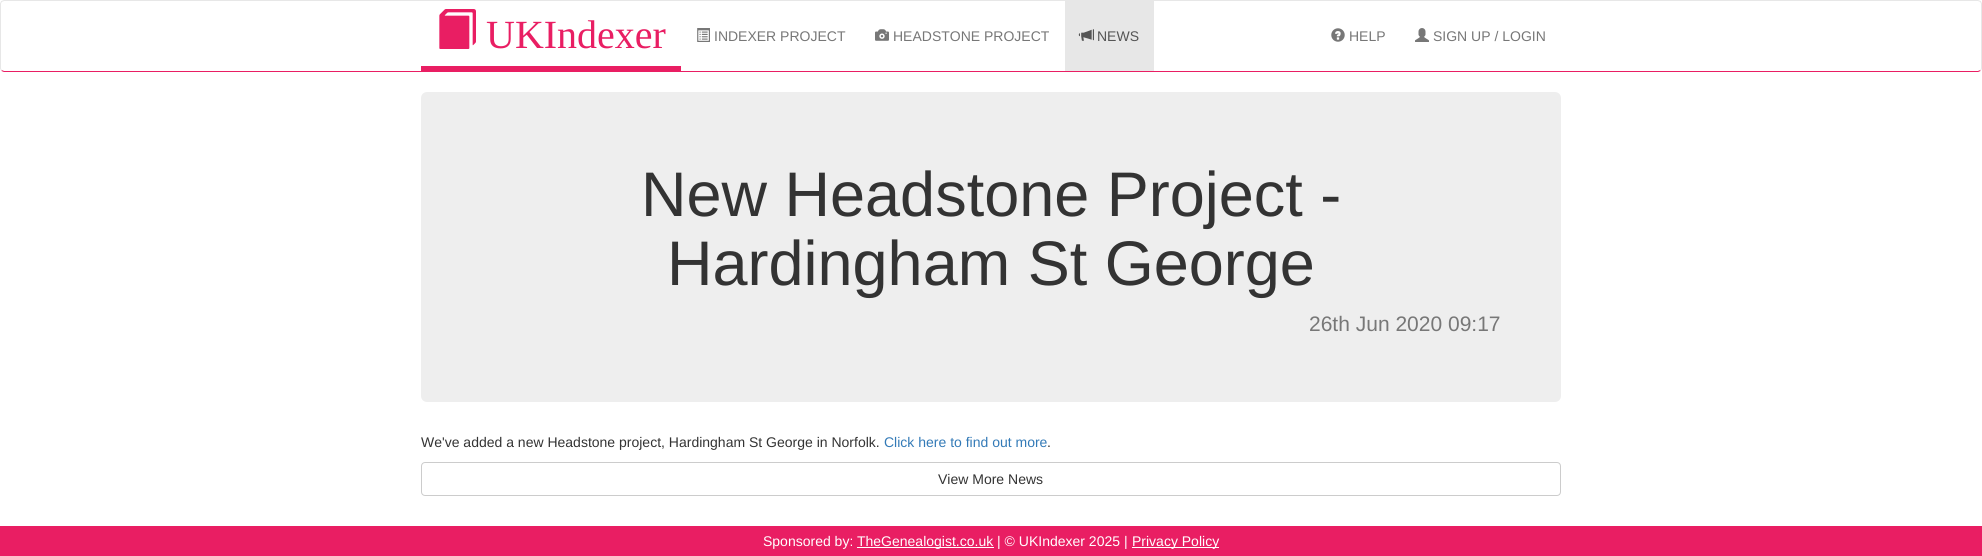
import math
import cairo

surface = cairo.ImageSurface(cairo.FORMAT_RGB24, 1982, 556)
ctx = cairo.Context(surface)
options = cairo.FontOptions()
options.set_hint_metrics(cairo.HINT_METRICS_OFF)
options.set_hint_style(cairo.HINT_STYLE_NONE)
ctx.set_font_options(options)
ctx.set_miter_limit(4)


def round_rect(x, y, w, h, r):
    ctx.new_sub_path()
    for i, (u, v) in enumerate([(x + w - r, y + h - r), (x + r, y + h - r), (x + r, y + r), (x + w - r, y + r)]):
        ctx.arc(u, v, r, i * math.pi / 2, (i + 1) * math.pi / 2)
    ctx.close_path()


def picture(path, x, y, w, h):
    ctx.save()
    ctx.set_source_surface(cairo.ImageSurface.create_from_png(path), x, y)
    ctx.rectangle(x, y, w, h)
    ctx.fill()
    ctx.restore()


ctx.set_source_rgb(1, 1, 1)
ctx.paint()
ctx.new_path()
ctx.move_to(1980.5, 70.5)
ctx.line_to(1978, 71.5)
ctx.line_to(4, 71.5)
ctx.line_to(1.5, 70.5)
ctx.set_source_rgb(0.914, 0.118, 0.388)
ctx.set_line_width(1)
ctx.stroke()
ctx.new_path()
ctx.move_to(1.5, 70.5)
ctx.line_to(0.5, 68.5)
ctx.line_to(0.5, 3.5)
ctx.line_to(1.5, 1.5)
ctx.line_to(4, 0.5)
ctx.line_to(1978, 0.5)
ctx.line_to(1980.5, 1.5)
ctx.line_to(1981.5, 3.5)
ctx.line_to(1981.5, 68.5)
ctx.line_to(1980.5, 70.5)
ctx.set_source_rgb(0.906, 0.906, 0.906)
ctx.stroke()
ctx.set_source_rgb(0.914, 0.118, 0.388)
ctx.rectangle(421, 66, 260, 5)
ctx.fill()
picture("img1.png", 439, 9, 37, 40)
ctx.select_font_face("Liberation Serif")
ctx.set_font_size(40)
ctx.move_to(486, 48)
ctx.show_text("UKIndexer")
picture("img2.png", 697, 28, 13, 14)
ctx.select_font_face("Liberation Sans")
ctx.set_font_size(14)
ctx.set_source_rgb(0.467, 0.467, 0.467)
ctx.move_to(714, 41)
ctx.show_text("INDEXER PROJECT")
picture("img3.png", 875, 29, 14, 12)
ctx.move_to(893, 41)
ctx.show_text("HEADSTONE PROJECT")
ctx.set_source_rgb(0.906, 0.906, 0.906)
ctx.rectangle(1065, 1, 89, 70)
ctx.fill()
picture("img4.png", 1078, 29, 16, 12)
ctx.set_source_rgb(0.333, 0.333, 0.333)
ctx.move_to(1097, 41)
ctx.show_text("NEWS")
picture("img5.png", 1331, 28, 14, 14)
ctx.set_source_rgb(0.467, 0.467, 0.467)
ctx.move_to(1349, 41)
ctx.show_text("HELP")
picture("img6.png", 1415, 28, 14, 14)
ctx.move_to(1433, 41)
ctx.show_text("SIGN UP / LOGIN")
ctx.set_source_rgb(0.933, 0.933, 0.933)
round_rect(421, 92, 1140, 310, 6)
ctx.fill()
ctx.set_font_size(63)
ctx.set_source_rgb(0.2, 0.2, 0.2)
ctx.move_to(641, 216)
ctx.show_text("New Headstone Project -")
ctx.move_to(667, 285)
ctx.show_text("Hardingham St George")
ctx.set_font_size(21)
ctx.set_source_rgb(0.467, 0.467, 0.467)
ctx.move_to(1309, 331)
ctx.show_text("26th Jun 2020 09:17")
ctx.set_font_size(14)
ctx.set_source_rgb(0.2, 0.2, 0.2)
ctx.move_to(421, 447)
ctx.show_text("We've added a new Headstone project, Hardingham St George in Norfolk.")
ctx.set_source_rgb(0.2, 0.478, 0.718)
ctx.move_to(884, 447)
ctx.show_text("Click here to find out more")
ctx.set_source_rgb(0.2, 0.2, 0.2)
ctx.move_to(1047, 447)
ctx.show_text(".")
round_rect(421.5, 462.5, 1139, 33, 3.5)
ctx.set_source_rgb(0.8, 0.8, 0.8)
ctx.stroke()
ctx.set_source_rgb(0.2, 0.2, 0.2)
ctx.move_to(938, 484)
ctx.show_text("View More News")
ctx.set_source_rgb(0.914, 0.118, 0.388)
ctx.rectangle(0, 526, 1982, 30)
ctx.fill()
ctx.set_source_rgb(1, 1, 1)
ctx.move_to(763, 546)
ctx.show_text("Sponsored by:")
ctx.rectangle(857, 547, 137, 1)
ctx.fill()
ctx.move_to(857, 546)
ctx.show_text("TheGenealogist.co.uk | © UKIndexer 2025 |")
ctx.rectangle(1132, 547, 87, 1)
ctx.fill()
ctx.move_to(1132, 546)
ctx.show_text("Privacy Policy")
surface.write_to_png("page.png")
